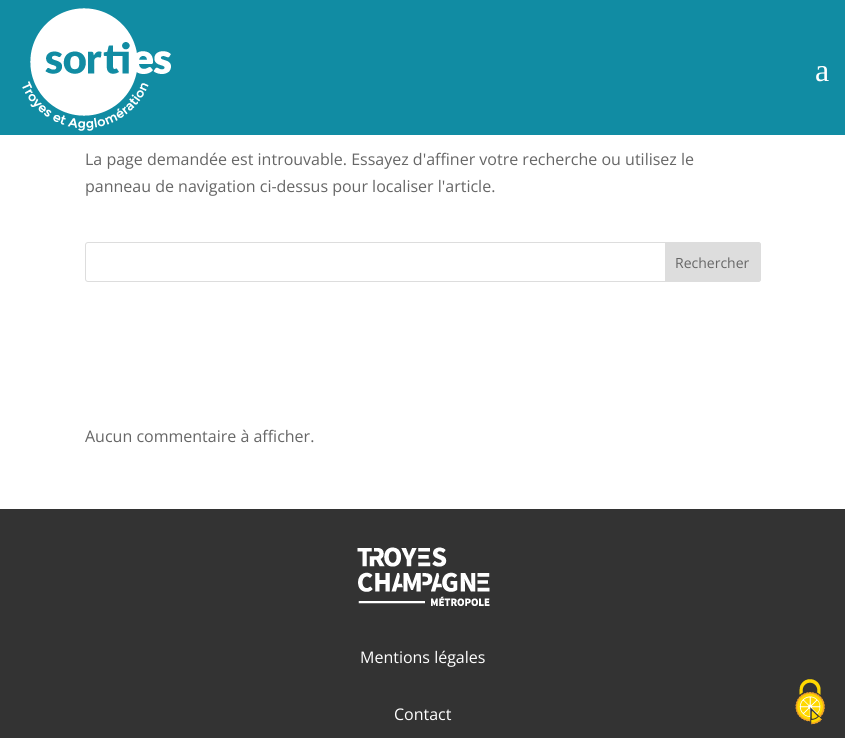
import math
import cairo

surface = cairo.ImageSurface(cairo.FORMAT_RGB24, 845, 738)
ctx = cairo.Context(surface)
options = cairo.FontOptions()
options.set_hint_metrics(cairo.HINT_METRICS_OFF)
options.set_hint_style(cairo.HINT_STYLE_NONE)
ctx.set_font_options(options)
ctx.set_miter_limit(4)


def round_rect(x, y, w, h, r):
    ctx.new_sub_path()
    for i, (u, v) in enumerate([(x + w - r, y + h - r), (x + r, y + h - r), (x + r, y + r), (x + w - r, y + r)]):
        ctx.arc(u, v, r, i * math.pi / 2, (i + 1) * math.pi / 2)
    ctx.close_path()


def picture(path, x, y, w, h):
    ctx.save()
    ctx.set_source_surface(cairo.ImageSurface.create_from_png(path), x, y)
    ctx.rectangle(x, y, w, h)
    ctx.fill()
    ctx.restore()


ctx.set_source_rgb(1, 1, 1)
ctx.paint()
ctx.set_source_rgb(0.067, 0.549, 0.639)
ctx.rectangle(0, 0, 845, 135)
ctx.fill()
picture("img1.png", 22, 8, 149, 123)
ctx.select_font_face("Liberation Serif")
ctx.set_font_size(32)
ctx.set_source_rgb(1, 1, 1)
ctx.move_to(815, 81)
ctx.show_text("a")
ctx.select_font_face("Open Sans")
ctx.set_font_size(16)
ctx.set_source_rgb(0.4, 0.4, 0.4)
ctx.move_to(85, 165)
ctx.show_text("La page demandée est introuvable. Essayez d'affiner votre recherche ou utilisez le")
ctx.move_to(85, 192)
ctx.show_text("panneau de navigation ci-dessus pour localiser l'article.")
round_rect(85.5, 242.5, 675, 39, 2.5)
ctx.set_source_rgb(0.867, 0.867, 0.867)
ctx.set_line_width(1)
ctx.stroke()
ctx.new_path()
ctx.move_to(665.5, 242.5)
ctx.line_to(758, 242.5)
ctx.curve_to(759.5, 242.5, 760.5, 243.5, 760.5, 245)
ctx.line_to(760.5, 279)
ctx.curve_to(760.5, 280.5, 759.5, 281.5, 758, 281.5)
ctx.line_to(665.5, 281.5)
ctx.close_path()
ctx.fill_preserve()
ctx.stroke()
ctx.set_font_size(14)
ctx.set_source_rgb(0.4, 0.4, 0.4)
ctx.move_to(675, 268)
ctx.show_text("Rechercher")
ctx.set_font_size(16)
ctx.move_to(85, 442)
ctx.show_text("Aucun commentaire à afficher.")
ctx.set_source_rgb(0.2, 0.2, 0.2)
ctx.rectangle(0, 509, 845, 229)
ctx.fill()
picture("img2.png", 357, 547, 133, 59)
ctx.set_source_rgb(1, 1, 1)
ctx.move_to(360, 663)
ctx.show_text("Mentions légales")
ctx.move_to(394, 720)
ctx.show_text("Contact")
picture("img3.png", 795, 679, 30, 46)
surface.write_to_png("page.png")
